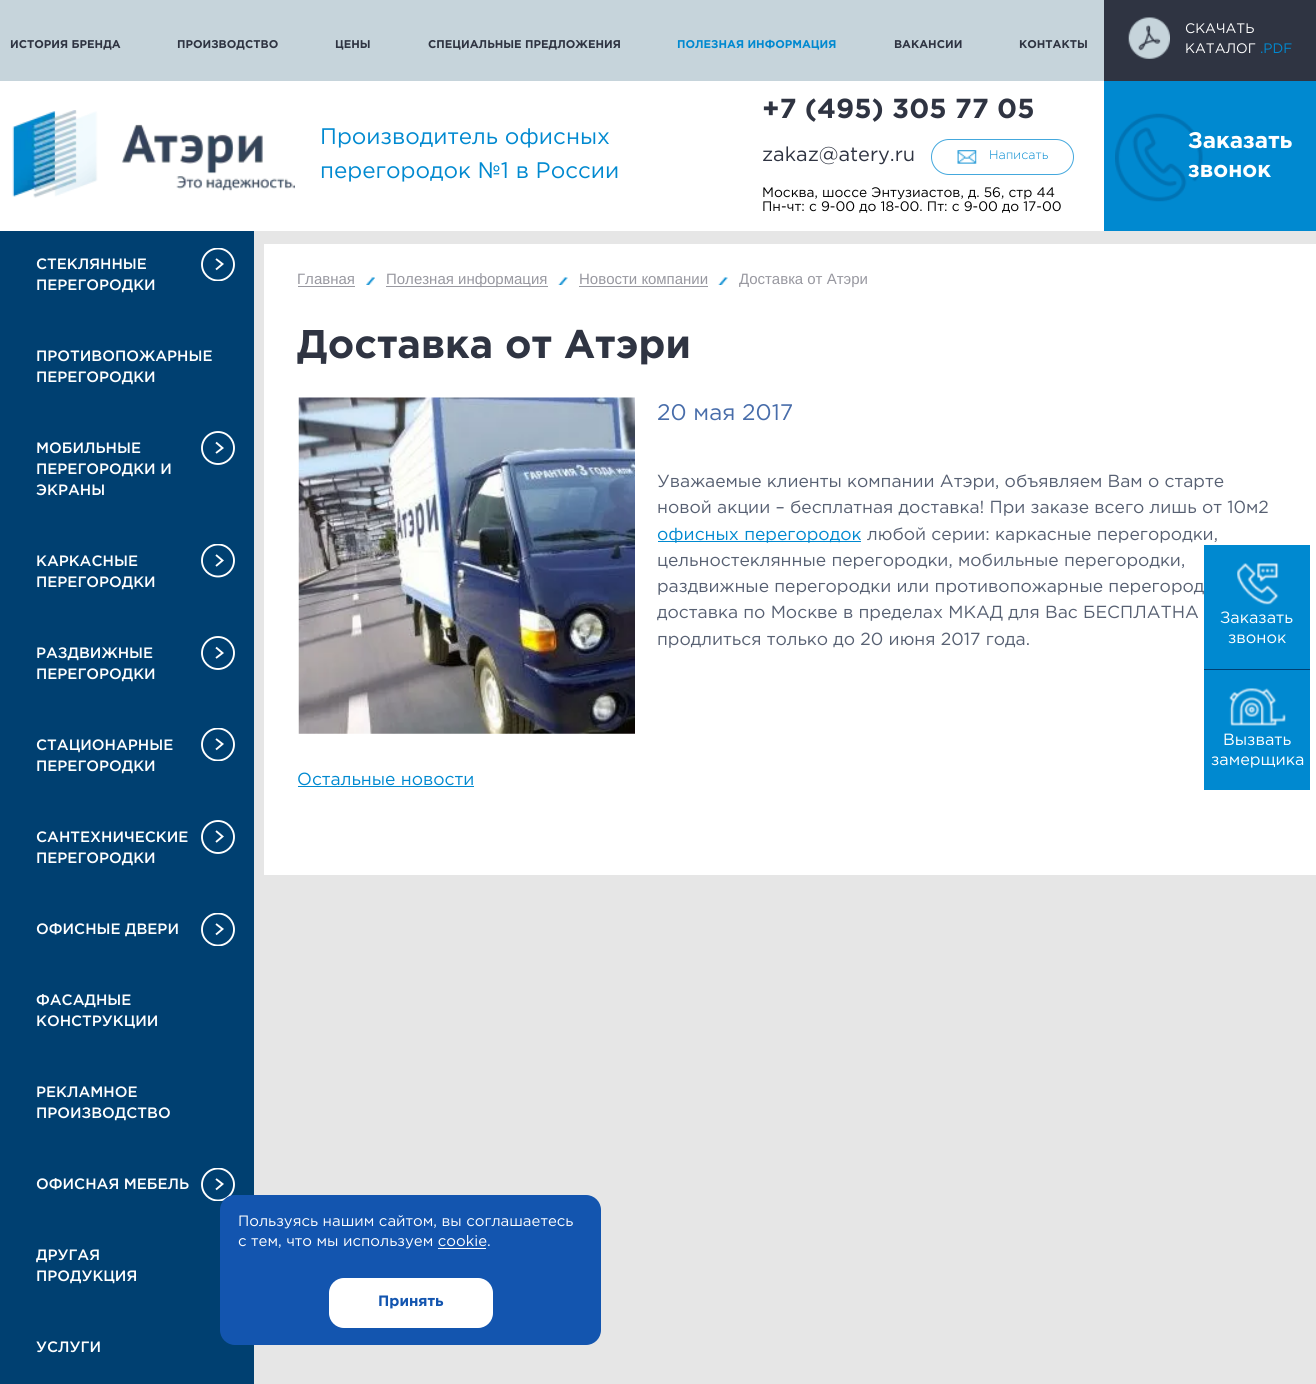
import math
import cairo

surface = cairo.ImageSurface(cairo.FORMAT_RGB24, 1316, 1384)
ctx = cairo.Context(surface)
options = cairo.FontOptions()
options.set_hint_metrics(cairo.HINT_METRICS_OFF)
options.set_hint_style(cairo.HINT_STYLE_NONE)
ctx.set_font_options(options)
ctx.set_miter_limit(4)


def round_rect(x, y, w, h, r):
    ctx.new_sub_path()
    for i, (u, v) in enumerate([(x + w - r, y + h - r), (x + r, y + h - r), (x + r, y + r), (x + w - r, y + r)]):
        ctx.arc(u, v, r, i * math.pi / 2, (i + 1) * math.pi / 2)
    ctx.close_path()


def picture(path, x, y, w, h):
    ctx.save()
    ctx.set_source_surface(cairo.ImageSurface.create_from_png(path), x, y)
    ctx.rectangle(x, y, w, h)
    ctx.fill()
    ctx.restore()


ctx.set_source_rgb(0.902, 0.902, 0.902)
ctx.paint()
ctx.set_source_rgb(0.184, 0.204, 0.259)
ctx.rectangle(1104, 0, 212, 81)
ctx.fill()
ctx.set_source_rgb(0.776, 0.831, 0.859)
ctx.rectangle(0, 0, 1104, 81)
ctx.fill()
ctx.select_font_face("Gotham", cairo.FONT_SLANT_NORMAL, cairo.FONT_WEIGHT_BOLD)
ctx.set_font_size(11.25)
ctx.set_source_rgb(0.184, 0.204, 0.259)
ctx.move_to(10, 48)
ctx.show_text("ИСТОРИЯ БРЕНДА")
ctx.move_to(177, 48)
ctx.show_text("ПРОИЗВОДСТВО")
ctx.move_to(335, 48)
ctx.show_text("ЦЕНЫ")
ctx.move_to(428, 48)
ctx.show_text("СПЕЦИАЛЬНЫЕ ПРЕДЛОЖЕНИЯ")
ctx.set_source_rgb(0, 0.537, 0.816)
ctx.move_to(677, 48)
ctx.show_text("ПОЛЕЗНАЯ ИНФОРМАЦИЯ")
ctx.set_source_rgb(0.184, 0.204, 0.259)
ctx.move_to(894, 48)
ctx.show_text("ВАКАНСИИ")
ctx.move_to(1019, 48)
ctx.show_text("КОНТАКТЫ")
picture("img1.png", 1128, 17, 42, 42)
ctx.select_font_face("Gotham")
ctx.set_font_size(13.75)
ctx.set_source_rgb(1, 1, 1)
ctx.move_to(1185, 33)
ctx.show_text("СКАЧАТЬ")
ctx.move_to(1185, 53)
ctx.show_text("КАТАЛОГ")
ctx.set_source_rgb(0, 0.537, 0.816)
ctx.move_to(1260, 53)
ctx.show_text(".PDF")
ctx.set_source_rgb(1, 1, 1)
ctx.rectangle(0, 81, 1104, 150)
ctx.fill()
picture("img2.png", 12, 110, 283, 88)
ctx.set_font_size(22.5)
ctx.set_source_rgb(0, 0.537, 0.816)
ctx.move_to(320, 144)
ctx.show_text("Производитель офисных")
ctx.move_to(320, 178)
ctx.show_text("перегородок №1 в России")
ctx.select_font_face("Gotham", cairo.FONT_SLANT_NORMAL, cairo.FONT_WEIGHT_BOLD)
ctx.set_font_size(27.5)
ctx.set_source_rgb(0.184, 0.204, 0.259)
ctx.move_to(762, 118)
ctx.show_text("+7 (495) 305 77 05")
ctx.select_font_face("Gotham")
ctx.set_font_size(20)
ctx.move_to(762, 161)
ctx.show_text("zakaz@atery.ru")
round_rect(931.5, 139.5, 142, 35, 17.5)
ctx.set_source_rgb(0.267, 0.659, 0.867)
ctx.set_line_width(1)
ctx.stroke()
picture("img3.png", 957, 150, 20, 14)
ctx.select_font_face("Gotham Light")
ctx.set_font_size(12.5)
ctx.set_source_rgb(0, 0.537, 0.816)
ctx.move_to(989, 159)
ctx.show_text("Написать")
ctx.select_font_face("Gotham")
ctx.set_font_size(13.75)
ctx.set_source_rgb(0, 0, 0)
ctx.move_to(762, 197)
ctx.show_text("Москва, шоссе Энтузиастов, д. 56, стр 44")
ctx.move_to(762, 211)
ctx.show_text("Пн-чт: с 9-00 до 18-00. Пт: с 9-00 до 17-00")
ctx.set_source_rgb(0, 0.537, 0.816)
ctx.rectangle(1104, 81, 212, 150)
ctx.fill()
picture("img4.png", 1115, 113, 88, 89)
ctx.select_font_face("Gotham", cairo.FONT_SLANT_NORMAL, cairo.FONT_WEIGHT_BOLD)
ctx.set_font_size(22.5)
ctx.set_source_rgb(1, 1, 1)
ctx.move_to(1188, 148)
ctx.show_text("Заказать")
ctx.move_to(1188, 177)
ctx.show_text("звонок")
ctx.set_source_rgb(0, 0.251, 0.443)
ctx.rectangle(0, 231, 254, 990)
ctx.fill()
ctx.select_font_face("Gotham Medium")
ctx.set_font_size(15)
ctx.set_source_rgb(1, 1, 1)
ctx.move_to(36, 269)
ctx.show_text("СТЕКЛЯННЫЕ")
ctx.move_to(36, 290)
ctx.show_text("ПЕРЕГОРОДКИ")
ctx.save()
ctx.rectangle(201, 248, 34, 33)
ctx.clip()
ctx.arc(218, 264.5, 16, 0, 2 * math.pi)
ctx.set_line_width(1.9)
ctx.stroke()
ctx.restore()
ctx.new_path()
ctx.move_to(216, 259)
ctx.line_to(222.5, 264)
ctx.line_to(216, 269.5)
ctx.set_line_width(1.9)
ctx.stroke()
ctx.move_to(36, 361)
ctx.show_text("ПРОТИВОПОЖАРНЫЕ")
ctx.move_to(36, 382)
ctx.show_text("ПЕРЕГОРОДКИ")
ctx.move_to(36, 453)
ctx.show_text("МОБИЛЬНЫЕ")
ctx.move_to(36, 474)
ctx.show_text("ПЕРЕГОРОДКИ И")
ctx.move_to(36, 495)
ctx.show_text("ЭКРАНЫ")
ctx.new_path()
ctx.arc(218, 448, 16, 0, 2 * math.pi)
ctx.stroke()
ctx.new_path()
ctx.move_to(216, 442.5)
ctx.line_to(222.5, 448)
ctx.line_to(216, 453)
ctx.stroke()
ctx.move_to(36, 566)
ctx.show_text("КАРКАСНЫЕ")
ctx.move_to(36, 587)
ctx.show_text("ПЕРЕГОРОДКИ")
ctx.save()
ctx.rectangle(201, 544, 34, 34)
ctx.clip()
ctx.arc(218, 560.5, 16, 0, 2 * math.pi)
ctx.stroke()
ctx.restore()
ctx.new_path()
ctx.move_to(216, 555)
ctx.line_to(222.5, 560.5)
ctx.line_to(216, 566)
ctx.stroke()
ctx.move_to(36, 658)
ctx.show_text("РАЗДВИЖНЫЕ")
ctx.move_to(36, 679)
ctx.show_text("ПЕРЕГОРОДКИ")
ctx.new_path()
ctx.arc(218, 653, 16, 0, 2 * math.pi)
ctx.stroke()
ctx.new_path()
ctx.move_to(216, 647.5)
ctx.line_to(222.5, 653)
ctx.line_to(216, 658)
ctx.stroke()
ctx.move_to(36, 750)
ctx.show_text("СТАЦИОНАРНЫЕ")
ctx.move_to(36, 771)
ctx.show_text("ПЕРЕГОРОДКИ")
ctx.save()
ctx.rectangle(201, 728, 34, 33)
ctx.clip()
ctx.arc(218, 744.5, 16, 0, 2 * math.pi)
ctx.stroke()
ctx.restore()
ctx.new_path()
ctx.move_to(216, 739)
ctx.line_to(222.5, 744)
ctx.line_to(216, 749.5)
ctx.stroke()
ctx.move_to(36, 842)
ctx.show_text("САНТЕХНИЧЕСКИЕ")
ctx.move_to(36, 863)
ctx.show_text("ПЕРЕГОРОДКИ")
ctx.new_path()
ctx.arc(218, 837, 16, 0, 2 * math.pi)
ctx.stroke()
ctx.new_path()
ctx.move_to(216, 831)
ctx.line_to(222.5, 836.5)
ctx.line_to(216, 842)
ctx.stroke()
ctx.move_to(36, 934)
ctx.show_text("ОФИСНЫЕ ДВЕРИ")
ctx.save()
ctx.rectangle(201, 913, 34, 33)
ctx.clip()
ctx.arc(218, 929.5, 16, 0, 2 * math.pi)
ctx.stroke()
ctx.restore()
ctx.new_path()
ctx.move_to(216, 924)
ctx.line_to(222.5, 929)
ctx.line_to(216, 934.5)
ctx.stroke()
ctx.move_to(36, 1005)
ctx.show_text("ФАСАДНЫЕ")
ctx.move_to(36, 1026)
ctx.show_text("КОНСТРУКЦИИ")
ctx.move_to(36, 1097)
ctx.show_text("РЕКЛАМНОЕ")
ctx.move_to(36, 1118)
ctx.show_text("ПРОИЗВОДСТВО")
ctx.move_to(36, 1189)
ctx.show_text("ОФИСНАЯ МЕБЕЛЬ")
ctx.save()
ctx.rectangle(201, 1168, 34, 33)
ctx.clip()
ctx.arc(218, 1184.5, 16, 0, 2 * math.pi)
ctx.stroke()
ctx.restore()
ctx.new_path()
ctx.move_to(216, 1179)
ctx.line_to(222.5, 1184)
ctx.line_to(216, 1189.5)
ctx.stroke()
ctx.set_source_rgb(0, 0.251, 0.443)
ctx.rectangle(0, 1221, 220, 93)
ctx.fill()
ctx.set_source_rgb(1, 1, 1)
ctx.move_to(36, 1260)
ctx.show_text("ДРУГАЯ")
ctx.move_to(36, 1281)
ctx.show_text("ПРОДУКЦИЯ")
ctx.set_source_rgb(0, 0.251, 0.443)
ctx.rectangle(0, 1314, 254, 70)
ctx.fill()
ctx.set_source_rgb(1, 1, 1)
ctx.move_to(36, 1352)
ctx.show_text("УСЛУГИ")
ctx.rectangle(264, 244, 1052, 631)
ctx.fill()
ctx.select_font_face("Liberation Sans")
ctx.set_source_rgb(0.596, 0.596, 0.627)
ctx.move_to(297, 284)
ctx.show_text("Главная")
ctx.rectangle(298, 286, 57, 1)
ctx.fill()
picture("img5.png", 366, 277, 9, 8)
ctx.rectangle(386, 286, 162, 1)
ctx.fill()
ctx.move_to(386, 284)
ctx.show_text("Полезная информация")
picture("img6.png", 558, 277, 10, 8)
ctx.move_to(579, 284)
ctx.show_text("Новости компании")
ctx.rectangle(579, 286, 129, 1)
ctx.fill()
picture("img6.png", 718, 277, 10, 8)
ctx.move_to(739, 284)
ctx.show_text("Доставка от Атэри")
ctx.select_font_face("Gotham", cairo.FONT_SLANT_NORMAL, cairo.FONT_WEIGHT_BOLD)
ctx.set_font_size(40)
ctx.set_source_rgb(0.184, 0.204, 0.259)
ctx.move_to(297, 358)
ctx.show_text("Доставка от Атэри")
picture("img7.png", 298, 397, 337, 337)
ctx.select_font_face("Gotham")
ctx.set_font_size(22.5)
ctx.set_source_rgb(0.282, 0.427, 0.667)
ctx.move_to(657, 420)
ctx.show_text("20 мая 2017")
ctx.set_font_size(17.5)
ctx.set_source_rgb(0.341, 0.376, 0.447)
ctx.move_to(657, 487)
ctx.show_text("Уважаемые клиенты компании Атэри, объявляем Вам о старте")
ctx.move_to(657, 513)
ctx.show_text("новой акции – бесплатная доставка! При заказе всего лишь от 10м2")
ctx.set_source_rgb(0, 0.537, 0.816)
ctx.rectangle(658, 541, 203, 1)
ctx.fill()
ctx.move_to(657, 540)
ctx.show_text("офисных перегородок")
ctx.set_source_rgb(0.341, 0.376, 0.447)
ctx.move_to(867, 540)
ctx.show_text("любой серии: каркасные перегородки,")
ctx.move_to(657, 566)
ctx.show_text("цельностеклянные перегородки, мобильные перегородки,")
ctx.move_to(657, 592)
ctx.show_text("раздвижные перегородки или противопожарные перегород")
ctx.move_to(657, 618)
ctx.show_text("доставка по Москве в пределах МКАД для Вас БЕСПЛАТНА")
ctx.move_to(657, 645)
ctx.show_text("продлиться только до 20 июня 2017 года.")
ctx.set_source_rgb(0, 0.537, 0.816)
ctx.move_to(297, 785)
ctx.show_text("Остальные новости")
ctx.rectangle(298, 786, 176, 1)
ctx.fill()
ctx.rectangle(1204, 545, 106, 124)
ctx.fill()
picture("img8.png", 1237, 563, 42, 42)
ctx.set_font_size(16.25)
ctx.set_source_rgb(1, 1, 1)
ctx.move_to(1220, 623)
ctx.show_text("Заказать")
ctx.move_to(1228, 643)
ctx.show_text("звонок")
ctx.set_source_rgb(0, 0.537, 0.816)
ctx.rectangle(1204, 670, 106, 120)
ctx.fill()
ctx.set_source_rgb(0, 0.251, 0.443)
ctx.rectangle(1204, 669, 106, 1)
ctx.fill()
picture("img9.png", 1229, 688, 57, 38)
ctx.set_source_rgb(1, 1, 1)
ctx.move_to(1223, 745)
ctx.show_text("Вызвать")
ctx.move_to(1211, 765)
ctx.show_text("замерщика")
ctx.set_source_rgb(0.075, 0.333, 0.686)
round_rect(220, 1195, 381, 150, 15)
ctx.fill()
ctx.set_font_size(15)
ctx.set_source_rgb(1, 1, 1)
ctx.move_to(238, 1226)
ctx.show_text("Пользуясь нашим сайтом, вы соглашаетесь")
ctx.move_to(238, 1246)
ctx.show_text("с тем, что мы используем cookie.")
ctx.rectangle(438, 1248, 48, 1)
ctx.fill()
round_rect(329, 1278, 164, 50, 15)
ctx.fill()
ctx.select_font_face("Gotham", cairo.FONT_SLANT_NORMAL, cairo.FONT_WEIGHT_BOLD)
ctx.set_source_rgb(0.075, 0.333, 0.686)
ctx.move_to(378, 1306)
ctx.show_text("Принять")
surface.write_to_png("page.png")
